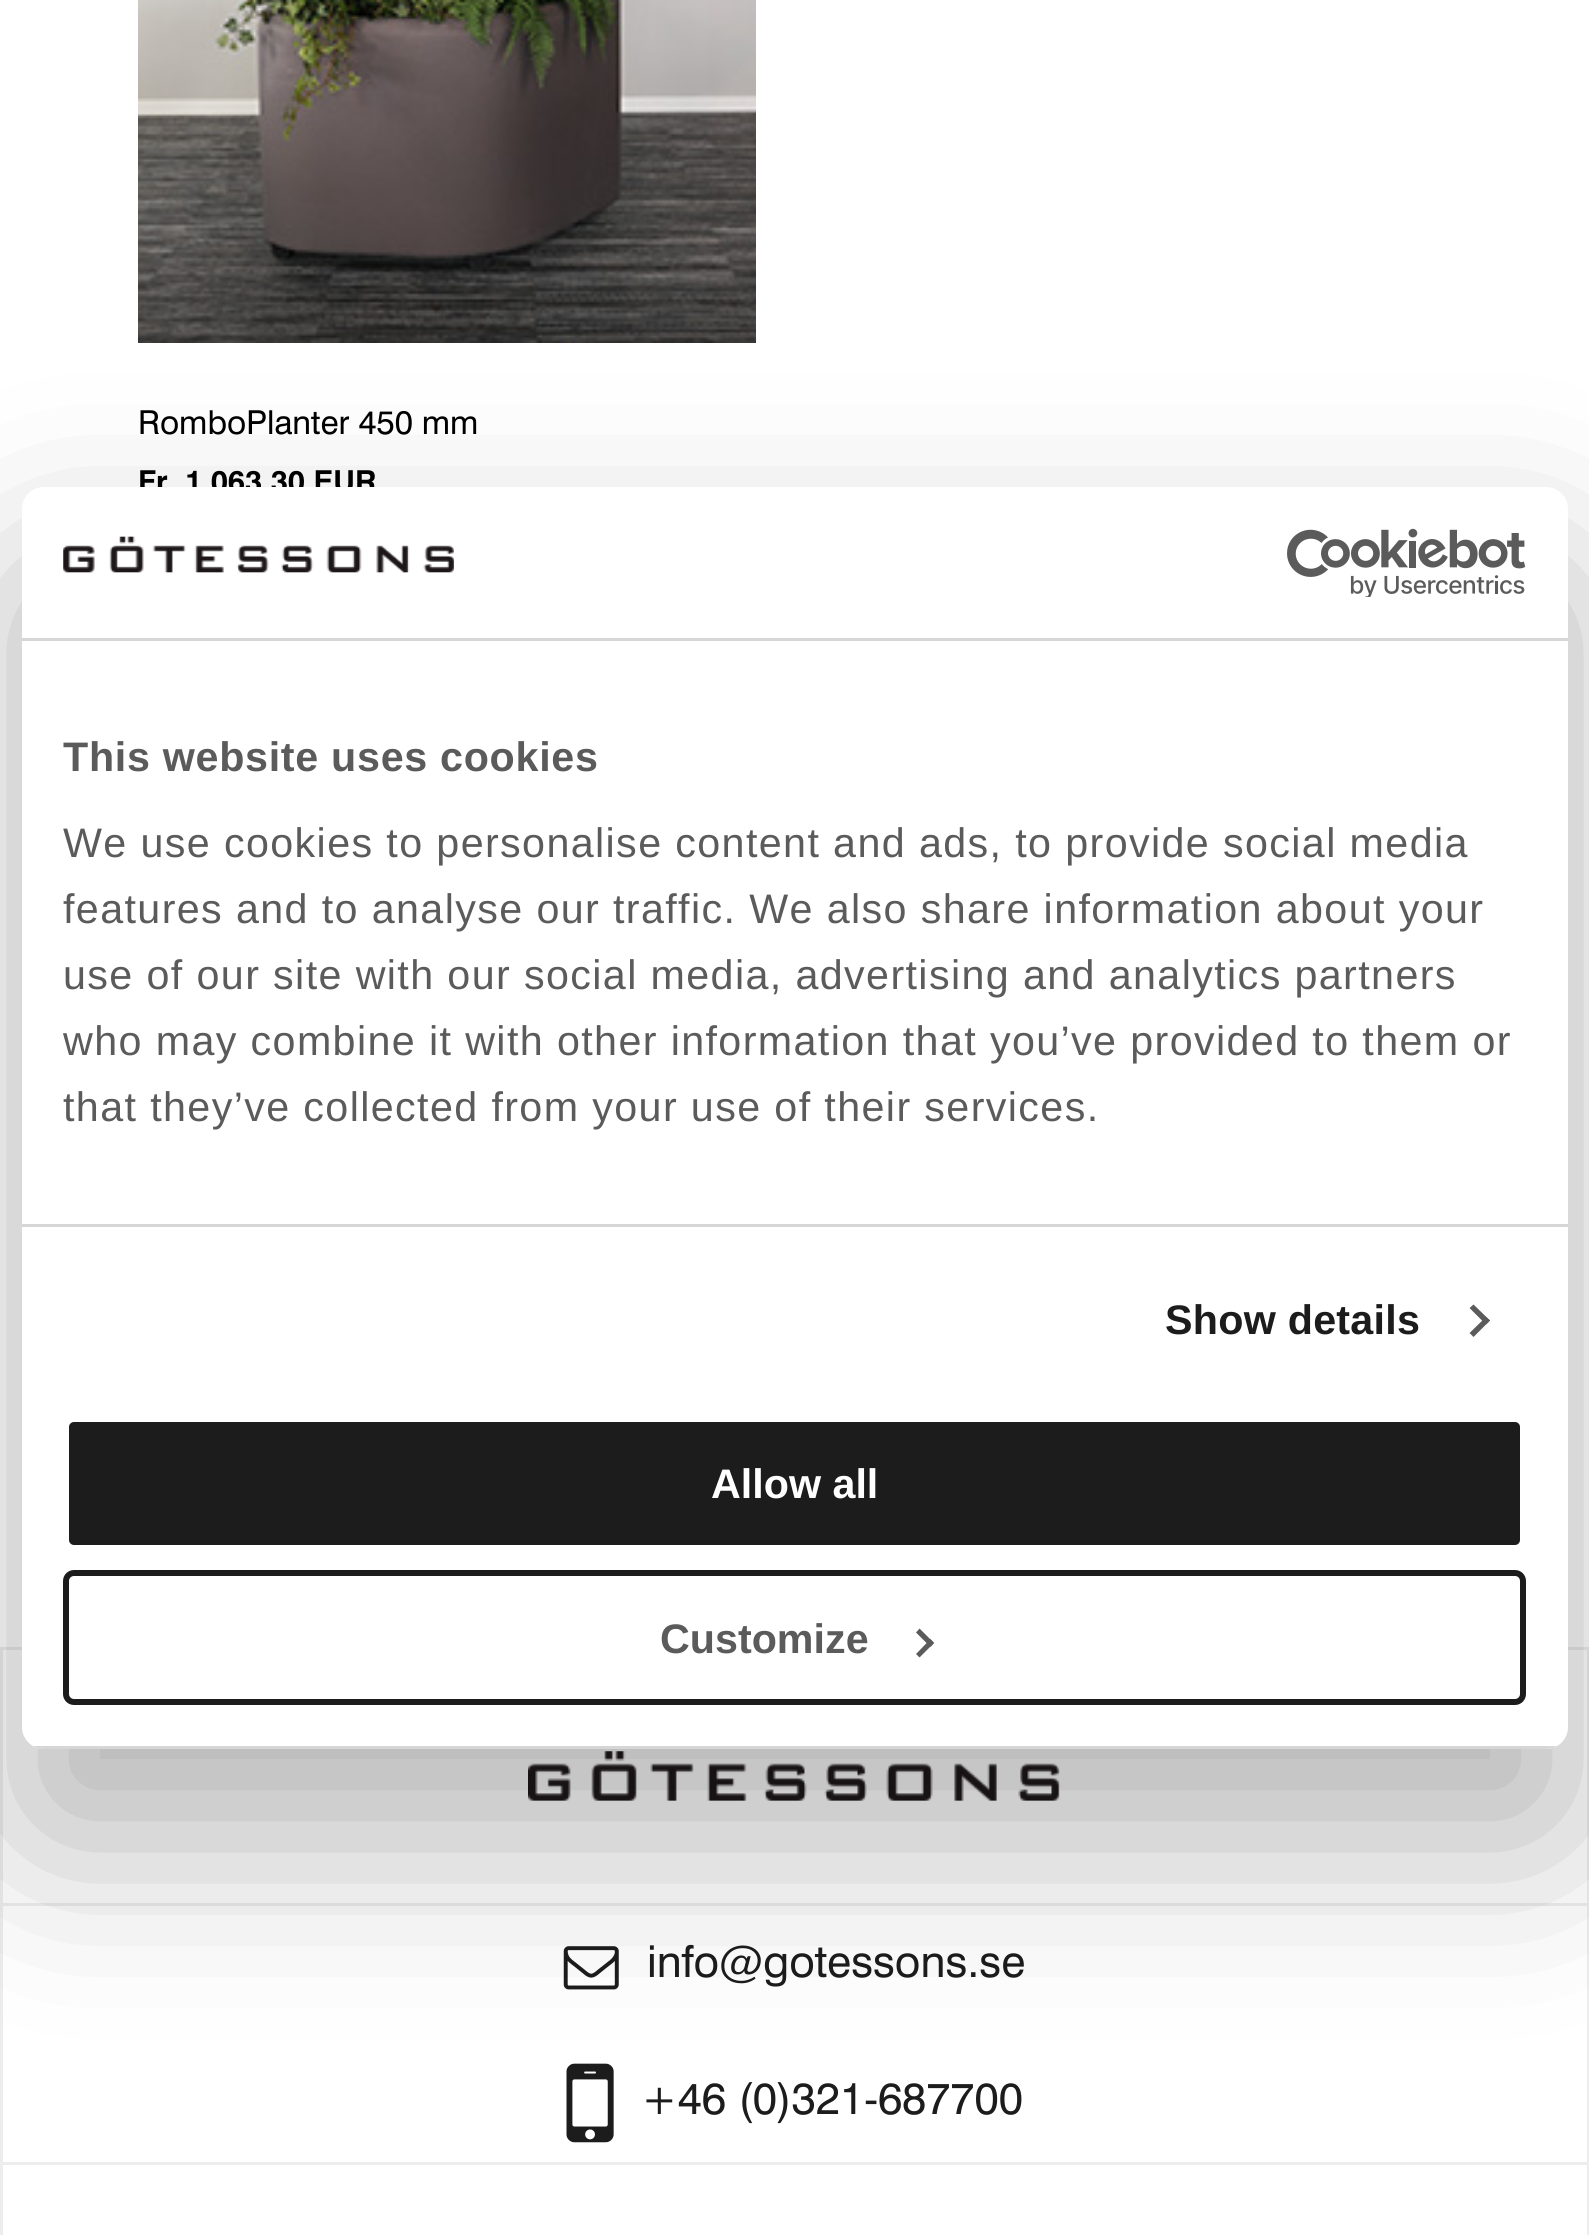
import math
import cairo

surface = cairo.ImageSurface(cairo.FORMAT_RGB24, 1589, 2235)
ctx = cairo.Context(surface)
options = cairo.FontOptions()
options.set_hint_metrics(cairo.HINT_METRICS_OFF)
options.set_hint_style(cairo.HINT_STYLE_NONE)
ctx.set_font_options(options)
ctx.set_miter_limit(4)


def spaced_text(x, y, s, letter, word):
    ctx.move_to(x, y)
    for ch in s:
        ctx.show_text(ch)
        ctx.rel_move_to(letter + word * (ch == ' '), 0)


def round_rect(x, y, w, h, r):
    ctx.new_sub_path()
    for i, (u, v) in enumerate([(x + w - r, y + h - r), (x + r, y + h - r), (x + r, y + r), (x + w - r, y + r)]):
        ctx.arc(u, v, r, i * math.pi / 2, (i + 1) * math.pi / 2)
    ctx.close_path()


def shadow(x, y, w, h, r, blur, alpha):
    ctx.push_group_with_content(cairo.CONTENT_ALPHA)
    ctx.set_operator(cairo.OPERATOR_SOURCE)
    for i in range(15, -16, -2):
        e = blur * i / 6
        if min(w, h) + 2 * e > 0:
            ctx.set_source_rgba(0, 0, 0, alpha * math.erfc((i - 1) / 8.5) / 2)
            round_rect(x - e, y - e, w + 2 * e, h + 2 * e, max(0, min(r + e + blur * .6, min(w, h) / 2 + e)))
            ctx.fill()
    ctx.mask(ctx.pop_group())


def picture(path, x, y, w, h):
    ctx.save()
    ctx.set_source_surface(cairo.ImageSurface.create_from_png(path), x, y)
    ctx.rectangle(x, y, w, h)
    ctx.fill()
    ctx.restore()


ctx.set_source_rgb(1, 1, 1)
ctx.paint()
picture("img1.png", 138, 0, 618, 343)
ctx.select_font_face("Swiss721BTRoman")
ctx.set_font_size(33)
ctx.set_source_rgb(0, 0, 0)
ctx.move_to(138, 434)
ctx.show_text("RomboPlanter 450 mm")
ctx.select_font_face("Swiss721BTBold", cairo.FONT_SLANT_NORMAL, cairo.FONT_WEIGHT_BOLD)
ctx.set_font_size(30.25)
ctx.move_to(138, 492)
ctx.show_text("Fr. 1,063.30 EUR")
ctx.rectangle(1.5, 1648.5, 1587, 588)
ctx.set_source_rgb(0.929, 0.929, 0.929)
ctx.set_line_width(3)
ctx.stroke()
ctx.rectangle(3, 1903, 1584, 3)
ctx.fill()
picture("img2.png", 528, 1751, 532, 50)
picture("img3.png", 563, 1946, 56, 44)
ctx.select_font_face("Swiss721BTRoman")
ctx.set_font_size(44)
ctx.set_source_rgb(0.11, 0.11, 0.11)
ctx.move_to(647, 1977)
ctx.show_text("info@gotessons.se")
picture("img4.png", 566, 2063, 48, 80)
ctx.move_to(641, 2114)
ctx.show_text("+46 (0)321-687700")
ctx.set_source_rgb(0.929, 0.929, 0.929)
ctx.rectangle(3, 2162, 1584, 3)
ctx.fill()
ctx.set_source_rgb(0, 0, 0)
shadow(22, 575, 1546, 1262, 22, 93.5, 0.3)
ctx.set_source_rgb(1, 1, 1)
round_rect(22, 487, 1546, 1262, 22)
ctx.fill()
ctx.set_source_rgb(0.839, 0.839, 0.839)
ctx.rectangle(22, 638, 1546, 3)
ctx.fill()
picture("img5.png", 63, 536, 391, 37)
picture("img6.png", 1287, 528, 239, 69)
ctx.rectangle(22, 1224, 1546, 3)
ctx.fill()
ctx.select_font_face("Liberation Sans", cairo.FONT_SLANT_NORMAL, cairo.FONT_WEIGHT_BOLD)
ctx.set_font_size(41.25)
ctx.set_source_rgb(0.357, 0.357, 0.357)
spaced_text(63, 771, "This website uses cookies", 0.7, 0)
ctx.select_font_face("Liberation Sans")
spaced_text(63, 857, "We use cookies to personalise content and ads, to provide social media", 1.38, 0)
spaced_text(63, 923, "features and to analyse our traffic. We also share information about your", 1.38, 0)
spaced_text(63, 989, "use of our site with our social media, advertising and analytics partners", 1.38, 0)
spaced_text(63, 1055, "who may combine it with other information that you’ve provided to them or", 1.38, 0)
spaced_text(63, 1121, "that they’ve collected from your use of their services.", 1.38, 0)
ctx.select_font_face("Liberation Sans", cairo.FONT_SLANT_NORMAL, cairo.FONT_WEIGHT_BOLD)
ctx.set_source_rgb(0.11, 0.11, 0.11)
spaced_text(1165, 1334, "Show details", 0.25, 0)
ctx.set_source_rgb(0.357, 0.357, 0.357)
ctx.new_path()
ctx.move_to(1473.5, 1304.5)
ctx.line_to(1490, 1320.5)
ctx.line_to(1486, 1324.5)
ctx.line_to(1469.5, 1308)
ctx.close_path()
ctx.fill()
ctx.new_path()
ctx.move_to(1486, 1317)
ctx.line_to(1490, 1320.5)
ctx.line_to(1473.5, 1337)
ctx.line_to(1469.5, 1333)
ctx.close_path()
ctx.fill()
ctx.save()
round_rect(22, 487, 1546, 1262, 22)
ctx.clip()
ctx.set_source_rgb(0.839, 0.839, 0.839)
ctx.rectangle(33, 1746, 1524, 3)
ctx.fill()
ctx.restore()
ctx.set_source_rgb(0.11, 0.11, 0.11)
round_rect(66, 1419, 1457, 129, 8)
ctx.fill_preserve()
ctx.set_source_rgb(1, 1, 1)
ctx.set_line_width(6)
ctx.stroke()
ctx.move_to(711, 1498)
ctx.show_text("Allow all")
round_rect(66, 1573, 1457, 129, 8)
ctx.set_source_rgb(0.11, 0.11, 0.11)
ctx.stroke()
ctx.set_source_rgb(0.357, 0.357, 0.357)
ctx.move_to(660, 1653)
ctx.show_text("Customize")
ctx.new_path()
ctx.move_to(919.5, 1628.5)
ctx.line_to(934, 1643)
ctx.line_to(930.5, 1647)
ctx.line_to(916, 1632.5)
ctx.close_path()
ctx.fill()
ctx.new_path()
ctx.move_to(930.5, 1639)
ctx.line_to(934, 1643)
ctx.line_to(919.5, 1657.5)
ctx.line_to(916, 1654)
ctx.close_path()
ctx.fill()
surface.write_to_png("page.png")
